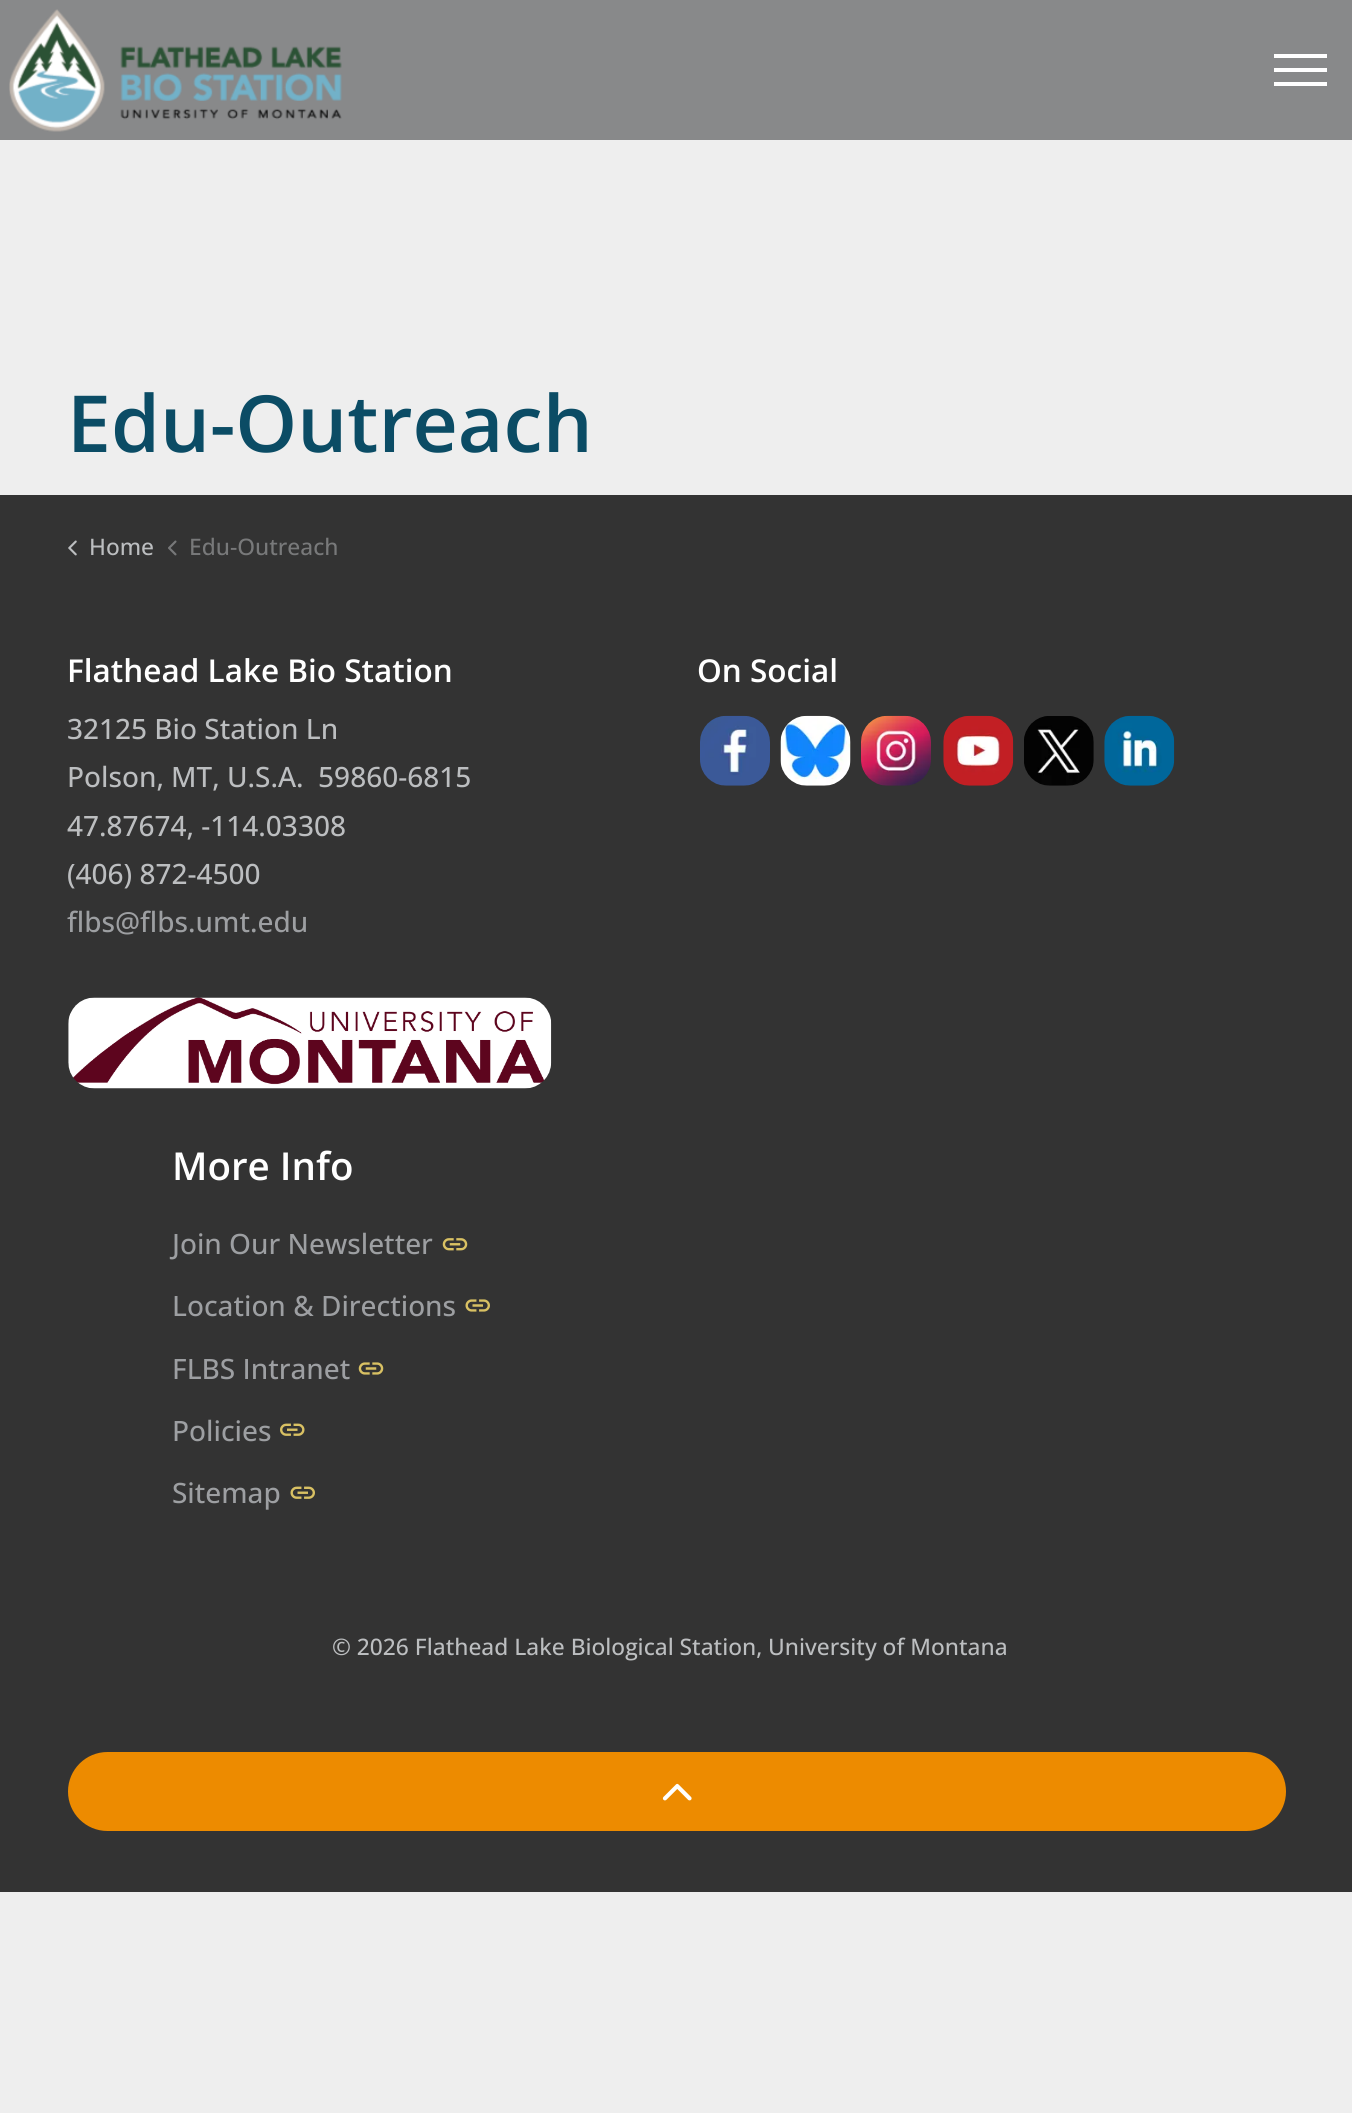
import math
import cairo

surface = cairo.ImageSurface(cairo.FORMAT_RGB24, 1352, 2113)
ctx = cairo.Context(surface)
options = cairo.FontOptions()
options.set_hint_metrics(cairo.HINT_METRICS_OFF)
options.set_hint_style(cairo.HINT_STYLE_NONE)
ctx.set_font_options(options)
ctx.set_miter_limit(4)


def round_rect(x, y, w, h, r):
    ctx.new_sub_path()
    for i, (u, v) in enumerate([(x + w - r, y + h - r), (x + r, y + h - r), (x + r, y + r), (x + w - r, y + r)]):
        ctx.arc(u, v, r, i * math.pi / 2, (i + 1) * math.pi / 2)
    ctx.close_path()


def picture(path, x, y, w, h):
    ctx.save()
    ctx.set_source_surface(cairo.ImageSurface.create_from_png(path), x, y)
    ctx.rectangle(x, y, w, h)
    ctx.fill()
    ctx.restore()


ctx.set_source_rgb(0.933, 0.933, 0.933)
ctx.paint()
ctx.set_source_rgb(0.533, 0.537, 0.541)
ctx.rectangle(0, 0, 1352, 140)
ctx.fill()
picture("img1.png", 9, 9, 333, 123)
ctx.set_source_rgb(1, 1, 1)
ctx.rectangle(1274, 68, 53, 4)
ctx.fill()
ctx.rectangle(1274, 54, 53, 4)
ctx.fill()
ctx.rectangle(1274, 82, 53, 4)
ctx.fill()
ctx.select_font_face("Open Sans SemiBold")
ctx.set_font_size(78.75)
ctx.set_source_rgb(0.043, 0.298, 0.396)
ctx.move_to(67, 452)
ctx.show_text("Edu-Outreach")
ctx.set_source_rgb(0.2, 0.2, 0.2)
ctx.rectangle(0, 495, 1352, 1397)
ctx.fill()
picture("img2.png", 68, 540, 9, 16)
ctx.select_font_face("Open Sans Medium")
ctx.set_font_size(22.75)
ctx.set_source_rgb(0.737, 0.745, 0.753)
ctx.move_to(89, 555)
ctx.show_text("Home")
picture("img3.png", 168, 540, 9, 16)
ctx.set_source_rgb(0.471, 0.475, 0.478)
ctx.move_to(189, 555)
ctx.show_text("Edu-Outreach")
ctx.select_font_face("Open Sans SemiBold")
ctx.set_font_size(31.5)
ctx.set_source_rgb(1, 1, 1)
ctx.move_to(67, 682)
ctx.show_text("Flathead Lake Bio Station")
ctx.select_font_face("Open Sans Medium")
ctx.set_font_size(28)
ctx.set_source_rgb(0.737, 0.745, 0.753)
ctx.move_to(67, 739)
ctx.show_text("32125 Bio Station Ln")
ctx.move_to(67, 787)
ctx.show_text("Polson, MT, U.S.A.  59860-6815")
ctx.move_to(67, 836)
ctx.show_text("47.87674, -114.03308")
ctx.move_to(67, 884)
ctx.show_text("(406) 872-4500")
ctx.set_source_rgb(0.616, 0.624, 0.635)
ctx.move_to(67, 932)
ctx.show_text("flbs@flbs.umt.edu")
picture("img4.png", 68, 997, 484, 92)
ctx.select_font_face("Open Sans SemiBold")
ctx.set_font_size(31.5)
ctx.set_source_rgb(1, 1, 1)
ctx.move_to(697, 682)
ctx.show_text("On Social")
picture("img5.png", 700, 715, 70, 71)
picture("img6.png", 780, 715, 71, 71)
picture("img7.png", 861, 715, 70, 71)
picture("img8.png", 943, 715, 71, 71)
picture("img9.png", 1024, 716, 70, 70)
picture("img10.png", 1104, 715, 71, 71)
ctx.set_font_size(38.5)
ctx.move_to(172, 1180)
ctx.show_text("More Info")
ctx.select_font_face("Open Sans Medium")
ctx.set_font_size(28)
ctx.set_source_rgb(0.616, 0.624, 0.635)
ctx.move_to(172, 1254)
ctx.show_text("Join Our Newsletter")
picture("img11.png", 442, 1238, 26, 13)
ctx.move_to(172, 1316)
ctx.show_text("Location & Directions")
picture("img12.png", 465, 1299, 25, 13)
ctx.move_to(172, 1379)
ctx.show_text("FLBS Intranet")
picture("img13.png", 358, 1362, 26, 13)
ctx.move_to(172, 1441)
ctx.show_text("Policies")
picture("img14.png", 280, 1423, 25, 13)
ctx.move_to(172, 1503)
ctx.show_text("Sitemap")
picture("img15.png", 290, 1486, 25, 13)
ctx.set_font_size(22.75)
ctx.set_source_rgb(0.737, 0.745, 0.753)
ctx.move_to(332, 1655)
ctx.show_text("© 2026 Flathead Lake Biological Station, University of Montana")
ctx.set_source_rgb(0.929, 0.545, 0)
round_rect(70, 1754, 1214, 75, 37.5)
ctx.fill_preserve()
ctx.set_line_width(4)
ctx.stroke()
picture("img16.png", 662, 1783, 30, 18)
surface.write_to_png("page.png")
